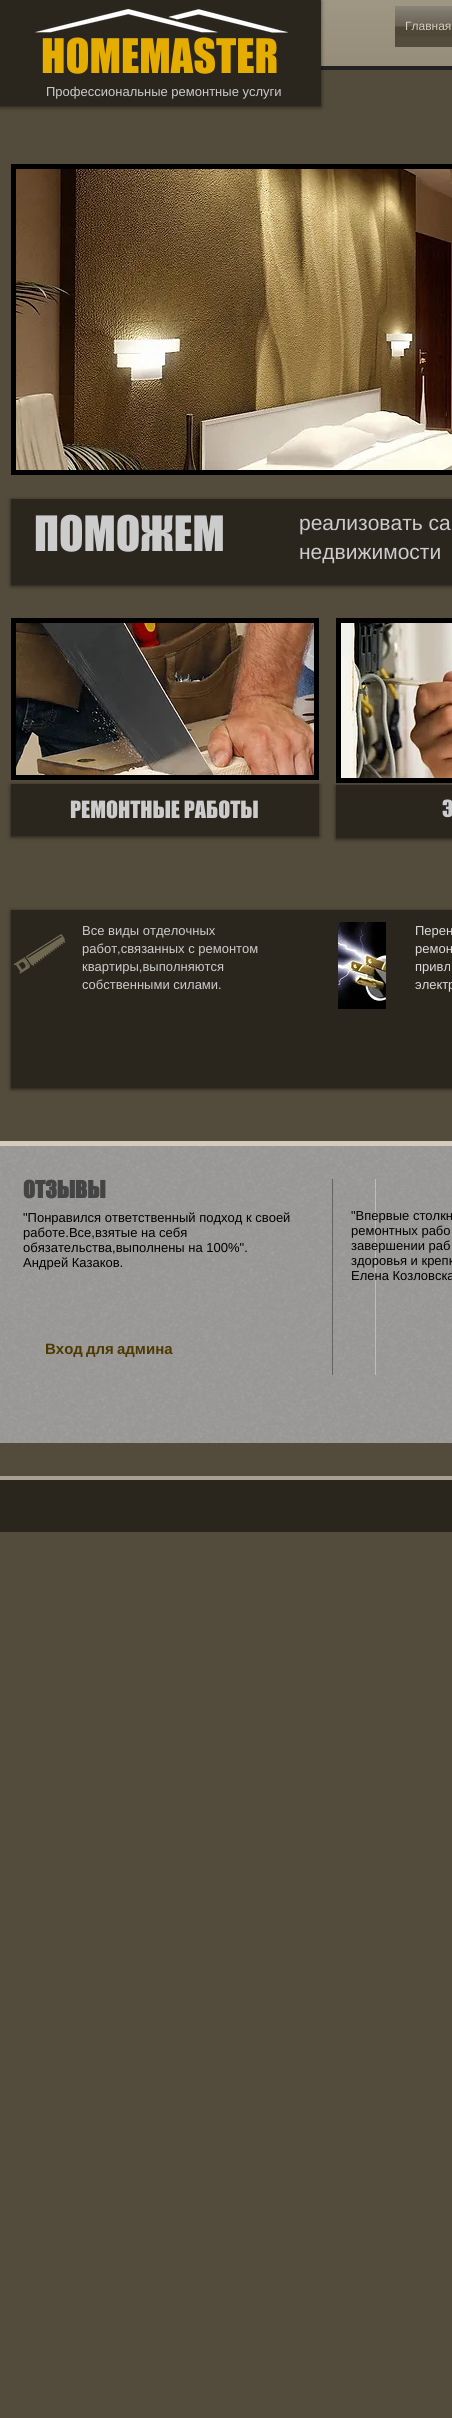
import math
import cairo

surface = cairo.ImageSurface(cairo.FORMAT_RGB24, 452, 2418)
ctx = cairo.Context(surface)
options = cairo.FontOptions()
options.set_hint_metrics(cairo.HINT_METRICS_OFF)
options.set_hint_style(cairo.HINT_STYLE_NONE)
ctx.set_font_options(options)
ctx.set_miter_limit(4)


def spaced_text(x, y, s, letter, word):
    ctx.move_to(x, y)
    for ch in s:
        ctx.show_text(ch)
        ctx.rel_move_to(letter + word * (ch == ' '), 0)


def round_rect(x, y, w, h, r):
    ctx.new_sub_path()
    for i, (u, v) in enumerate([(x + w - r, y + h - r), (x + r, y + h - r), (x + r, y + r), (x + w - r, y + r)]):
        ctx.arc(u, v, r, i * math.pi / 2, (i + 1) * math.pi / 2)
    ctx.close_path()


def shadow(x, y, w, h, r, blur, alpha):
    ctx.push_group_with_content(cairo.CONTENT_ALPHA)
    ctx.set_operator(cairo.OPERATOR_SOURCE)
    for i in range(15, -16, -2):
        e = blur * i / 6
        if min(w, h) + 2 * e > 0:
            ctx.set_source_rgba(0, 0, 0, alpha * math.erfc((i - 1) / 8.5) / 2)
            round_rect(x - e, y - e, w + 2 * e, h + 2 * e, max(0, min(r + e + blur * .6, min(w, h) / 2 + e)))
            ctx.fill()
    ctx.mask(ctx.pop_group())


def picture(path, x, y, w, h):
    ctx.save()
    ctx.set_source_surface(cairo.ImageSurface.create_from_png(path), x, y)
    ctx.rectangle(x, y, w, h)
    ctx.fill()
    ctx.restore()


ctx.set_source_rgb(0.325, 0.294, 0.231)
ctx.paint()
ctx.set_source_rgb(0.49, 0.443, 0.349)
ctx.rectangle(321, 0, 131, 66)
ctx.fill()
ctx.set_source_rgb(0.133, 0.133, 0.133)
ctx.rectangle(321, 66, 131, 4)
ctx.fill()
picture("img1.png", 321, 0, 131, 66)
ctx.set_source_rgb(0.325, 0.294, 0.231)
ctx.rectangle(395, 6, 57, 41)
ctx.fill()
picture("img2.png", 395, 6, 57, 31)
ctx.select_font_face("Liberation Sans")
ctx.set_font_size(12)
ctx.set_source_rgb(0.831, 0.804, 0.749)
ctx.move_to(405, 30)
ctx.show_text("Главная")
ctx.set_source_rgb(0, 0, 0)
shadow(0, 1, 321, 106, 0, 2, 0.6)
ctx.set_source_rgb(0.165, 0.149, 0.118)
ctx.rectangle(0, 0, 321, 106)
ctx.fill()
picture("img3.png", 35, 8, 254, 25)
ctx.select_font_face("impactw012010")
ctx.set_font_size(44)
ctx.set_source_rgb(0.898, 0.675, 0.008)
ctx.move_to(41, 73)
ctx.show_text("HOMEMASTER")
ctx.select_font_face("Liberation Sans")
ctx.set_font_size(13)
ctx.set_source_rgb(0.8, 0.8, 0.8)
ctx.move_to(46, 96)
ctx.show_text("Профессиональные ремонтные услуги")
ctx.set_source_rgb(0, 0, 0)
ctx.rectangle(11, 164, 441, 311)
ctx.fill()
picture("img4.png", 16, 169, 436, 301)
ctx.set_source_rgb(0, 0, 0)
shadow(11, 500, 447, 86, 0, 2, 0.6)
ctx.set_source_rgb(0.165, 0.149, 0.118)
ctx.rectangle(11, 499, 441, 86)
ctx.fill()
ctx.select_font_face("impactw012010")
ctx.set_font_size(45)
ctx.set_source_rgb(0.8, 0.8, 0.8)
ctx.move_to(34, 551)
ctx.show_text("ПОМОЖЕМ")
ctx.select_font_face("Liberation Sans")
ctx.set_font_size(21)
ctx.move_to(299, 530)
ctx.show_text("реализовать са")
ctx.move_to(299, 559)
ctx.show_text("недвижимости")
ctx.set_source_rgb(0, 0, 0)
ctx.rectangle(11, 618, 308, 162)
ctx.fill()
picture("img5.png", 16, 623, 298, 152)
ctx.rectangle(336, 618, 116, 165)
ctx.fill()
picture("img6.png", 341, 623, 111, 155)
ctx.set_source_rgb(0, 0, 0)
shadow(11, 785, 308, 52, 0, 2, 0.6)
ctx.set_source_rgb(0.165, 0.149, 0.118)
ctx.rectangle(11, 784, 308, 52)
ctx.fill()
ctx.select_font_face("impactw012010")
ctx.set_font_size(22)
ctx.set_source_rgb(0.8, 0.8, 0.8)
ctx.move_to(70, 818)
ctx.show_text("РЕМОНТНЫЕ РАБОТЫ")
ctx.set_source_rgb(0, 0, 0)
shadow(336, 786, 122, 53, 0, 2, 0.6)
ctx.set_source_rgb(0.165, 0.149, 0.118)
ctx.rectangle(336, 785, 116, 53)
ctx.fill()
ctx.set_source_rgb(0.8, 0.8, 0.8)
ctx.move_to(442, 817)
ctx.show_text("Э")
ctx.set_source_rgb(0, 0, 0)
shadow(11, 911, 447, 178, 0, 2, 0.6)
ctx.set_source_rgb(0.165, 0.149, 0.118)
ctx.rectangle(11, 910, 441, 178)
ctx.fill()
picture("img7.png", 13, 934, 53, 40)
ctx.select_font_face("Liberation Sans")
ctx.set_font_size(13)
ctx.set_source_rgb(0.8, 0.8, 0.8)
ctx.move_to(82, 935)
ctx.show_text("Все виды отделочных")
ctx.move_to(82, 953)
ctx.show_text("работ,связанных с ремонтом")
ctx.move_to(82, 971)
ctx.show_text("квартиры,выполняются")
ctx.move_to(82, 989)
ctx.show_text("собственными силами.")
picture("img8.png", 338, 922, 48, 87)
ctx.set_source_rgb(0.859, 0.859, 0.859)
ctx.move_to(415, 935)
ctx.show_text("Перен")
ctx.move_to(415, 953)
ctx.show_text("ремон")
ctx.move_to(415, 971)
ctx.show_text("привл")
ctx.move_to(415, 989)
ctx.show_text("электр")
ctx.set_source_rgb(0.69, 0.682, 0.671)
ctx.rectangle(0, 1146, 452, 297)
ctx.fill()
picture("img9.png", 0, 1146, 452, 297)
ctx.set_source_rgb(0.831, 0.804, 0.749)
ctx.rectangle(0, 1141, 452, 5)
ctx.fill()
ctx.select_font_face("impactw012010", cairo.FONT_SLANT_NORMAL, cairo.FONT_WEIGHT_BOLD)
ctx.set_font_size(22)
ctx.set_source_rgb(0.267, 0.267, 0.267)
ctx.move_to(23, 1198)
ctx.show_text("ОТЗЫВЫ")
ctx.set_source_rgba(1, 1, 1, 0.35)
ctx.rectangle(375, 1179, 1, 196)
ctx.fill()
ctx.set_source_rgba(0, 0, 0, 0.35)
ctx.rectangle(332, 1179, 1, 196)
ctx.fill()
ctx.select_font_face("Liberation Sans")
ctx.set_font_size(13)
ctx.set_source_rgb(0, 0, 0)
ctx.move_to(23, 1222)
ctx.show_text("\"Понравился ответственный подход к своей")
ctx.move_to(23, 1237)
ctx.show_text("работе.Все,взятые на себя")
ctx.move_to(23, 1252)
ctx.show_text("обязательства,выполнены на 100%\".")
ctx.move_to(23, 1267)
ctx.show_text("Андрей Казаков.")
ctx.move_to(351, 1220)
ctx.show_text("\"Впервые столкн")
ctx.move_to(351, 1235)
ctx.show_text("ремонтных рабо")
ctx.move_to(351, 1250)
ctx.show_text("завершении раб")
ctx.move_to(351, 1265)
ctx.show_text("здоровья и крепк")
ctx.move_to(351, 1280)
ctx.show_text("Елена Козловска")
ctx.select_font_face("Liberation Sans", cairo.FONT_SLANT_NORMAL, cairo.FONT_WEIGHT_BOLD)
ctx.set_font_size(15)
ctx.set_source_rgb(0.298, 0.224, 0)
spaced_text(45, 1354, "Вход для админа", 0, -1)
ctx.set_source_rgb(0.165, 0.149, 0.118)
ctx.rectangle(0, 1480, 452, 52)
ctx.fill()
ctx.set_source_rgb(0.659, 0.627, 0.565)
ctx.rectangle(0, 1476, 452, 4)
ctx.fill()
surface.write_to_png("page.png")
